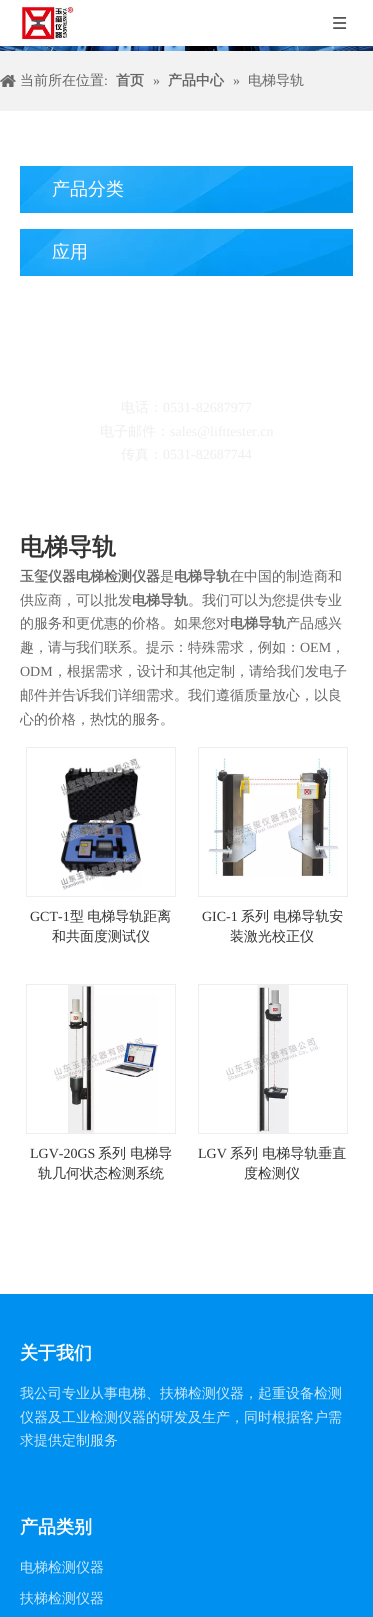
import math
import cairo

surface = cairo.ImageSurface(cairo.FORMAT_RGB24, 373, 1617)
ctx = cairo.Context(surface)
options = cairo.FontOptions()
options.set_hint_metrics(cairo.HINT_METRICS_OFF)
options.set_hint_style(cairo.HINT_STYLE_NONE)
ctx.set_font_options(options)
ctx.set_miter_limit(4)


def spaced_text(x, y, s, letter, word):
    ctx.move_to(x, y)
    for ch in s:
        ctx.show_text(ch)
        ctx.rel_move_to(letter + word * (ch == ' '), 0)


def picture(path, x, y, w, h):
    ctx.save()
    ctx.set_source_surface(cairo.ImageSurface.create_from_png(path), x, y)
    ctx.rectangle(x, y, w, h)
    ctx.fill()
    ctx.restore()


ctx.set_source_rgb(1, 1, 1)
ctx.paint()
picture("img1.png", 20, 5, 54, 36)
picture("img2.png", 333, 17, 14, 12)
picture("img3.png", 0, 46, 373, 5)
ctx.set_source_rgb(0.949, 0.949, 0.949)
ctx.rectangle(0, 51, 373, 60)
ctx.fill()
picture("img4.png", 0, 75, 16, 12)
ctx.select_font_face("WenQuanYi Zen Hei Medium")
ctx.set_font_size(14)
ctx.set_source_rgb(0.4, 0.4, 0.4)
ctx.move_to(20, 85)
ctx.show_text("当前所在位置")
ctx.select_font_face("Liberation Serif")
ctx.move_to(104, 85)
ctx.show_text(":")
ctx.select_font_face("WenQuanYi Zen Hei", cairo.FONT_SLANT_NORMAL, cairo.FONT_WEIGHT_BOLD)
ctx.move_to(116, 85)
ctx.show_text("首页")
ctx.select_font_face("Liberation Serif")
ctx.move_to(153, 85)
ctx.show_text("»")
ctx.select_font_face("WenQuanYi Zen Hei", cairo.FONT_SLANT_NORMAL, cairo.FONT_WEIGHT_BOLD)
ctx.move_to(168, 85)
ctx.show_text("产品中心")
ctx.select_font_face("Liberation Serif")
ctx.move_to(233, 85)
ctx.show_text("»")
ctx.select_font_face("WenQuanYi Zen Hei Medium")
ctx.move_to(248, 85)
ctx.show_text("电梯导轨")
picture("img5.png", 20, 166, 333, 47)
ctx.set_font_size(18)
ctx.set_source_rgb(1, 1, 1)
ctx.move_to(52, 195)
ctx.show_text("产品分类")
picture("img5.png", 20, 229, 333, 47)
ctx.move_to(52, 258)
ctx.show_text("应用")
ctx.set_font_size(14)
ctx.set_source_rgb(0.933, 0.933, 0.933)
ctx.move_to(121, 412)
ctx.show_text("电话：")
ctx.select_font_face("Liberation Serif")
ctx.move_to(163, 412)
ctx.show_text("0531-82687977")
ctx.select_font_face("WenQuanYi Zen Hei Medium")
ctx.move_to(100, 436)
ctx.show_text("电子邮件：")
ctx.select_font_face("Liberation Serif")
ctx.move_to(170, 436)
ctx.show_text("sales@lifttester.cn")
ctx.select_font_face("WenQuanYi Zen Hei Medium")
ctx.move_to(121, 459)
ctx.show_text("传真：")
ctx.select_font_face("Liberation Serif")
ctx.move_to(163, 459)
ctx.show_text("0531-82687744")
ctx.select_font_face("WenQuanYi Zen Hei", cairo.FONT_SLANT_NORMAL, cairo.FONT_WEIGHT_BOLD)
ctx.set_font_size(24)
ctx.set_source_rgb(0.2, 0.2, 0.2)
ctx.move_to(20, 555)
ctx.show_text("电梯导轨")
ctx.set_font_size(14)
ctx.set_source_rgb(0.4, 0.4, 0.4)
ctx.move_to(20, 581)
ctx.show_text("玉玺仪器电梯检测仪器")
ctx.select_font_face("WenQuanYi Zen Hei Medium")
ctx.move_to(160, 581)
ctx.show_text("是")
ctx.select_font_face("WenQuanYi Zen Hei", cairo.FONT_SLANT_NORMAL, cairo.FONT_WEIGHT_BOLD)
ctx.move_to(174, 581)
ctx.show_text("电梯导轨")
ctx.select_font_face("WenQuanYi Zen Hei Medium")
ctx.move_to(230, 581)
ctx.show_text("在中国的制造商和")
ctx.move_to(20, 605)
ctx.show_text("供应商，可以批发")
ctx.select_font_face("WenQuanYi Zen Hei", cairo.FONT_SLANT_NORMAL, cairo.FONT_WEIGHT_BOLD)
ctx.move_to(132, 605)
ctx.show_text("电梯导轨")
ctx.select_font_face("WenQuanYi Zen Hei Medium")
ctx.move_to(188, 605)
ctx.show_text("。我们可以为您提供专业")
ctx.move_to(20, 628)
ctx.show_text("的服务和更优惠的价格。如果您对")
ctx.select_font_face("WenQuanYi Zen Hei", cairo.FONT_SLANT_NORMAL, cairo.FONT_WEIGHT_BOLD)
ctx.move_to(230, 628)
ctx.show_text("电梯导轨")
ctx.select_font_face("WenQuanYi Zen Hei Medium")
ctx.move_to(286, 628)
ctx.show_text("产品感兴")
ctx.move_to(20, 652)
ctx.show_text("趣，请与我们联系。提示：特殊需求，例如：")
ctx.select_font_face("Liberation Serif")
ctx.move_to(300, 652)
ctx.show_text("OEM")
ctx.select_font_face("WenQuanYi Zen Hei Medium")
ctx.move_to(331, 652)
ctx.show_text("，")
ctx.select_font_face("Liberation Serif")
ctx.move_to(20, 676)
ctx.show_text("ODM")
ctx.select_font_face("WenQuanYi Zen Hei Medium")
ctx.move_to(53, 676)
ctx.show_text("，根据需求，设计和其他定制，请给我们发电子")
ctx.move_to(20, 700)
ctx.show_text("邮件并告诉我们详细需求。我们遵循质量放心，以良")
ctx.move_to(20, 724)
ctx.show_text("心的价格，热忱的服务。")
ctx.rectangle(26.5, 747.5, 149, 149)
ctx.set_source_rgb(0.933, 0.933, 0.933)
ctx.set_line_width(1)
ctx.stroke()
picture("img6.png", 60, 758, 82, 132)
ctx.select_font_face("Liberation Serif")
ctx.set_source_rgb(0.2, 0.2, 0.2)
ctx.move_to(30, 921)
ctx.show_text("GCT-1")
ctx.select_font_face("WenQuanYi Zen Hei Medium")
spaced_text(70, 921, "型 电梯导轨距离", 0, -1)
ctx.move_to(52, 941)
ctx.show_text("和共面度测试仪")
ctx.rectangle(198.5, 747.5, 149, 149)
ctx.set_source_rgb(0.933, 0.933, 0.933)
ctx.stroke()
picture("img7.png", 208, 758, 131, 119)
ctx.select_font_face("Liberation Serif")
ctx.set_source_rgb(0.2, 0.2, 0.2)
ctx.move_to(202, 921)
ctx.show_text("GIC-1")
ctx.select_font_face("WenQuanYi Zen Hei Medium")
ctx.move_to(241, 921)
ctx.show_text("系列 电梯导轨安")
ctx.move_to(230, 941)
ctx.show_text("装激光校正仪")
ctx.rectangle(26.5, 984.5, 149, 149)
ctx.set_source_rgb(0.933, 0.933, 0.933)
ctx.stroke()
picture("img8.png", 54, 985, 104, 148)
ctx.select_font_face("Liberation Serif")
ctx.set_source_rgb(0.2, 0.2, 0.2)
ctx.move_to(30, 1158)
ctx.show_text("LGV-20GS")
ctx.select_font_face("WenQuanYi Zen Hei Medium")
ctx.move_to(98, 1158)
ctx.show_text("系列 电梯导")
ctx.move_to(38, 1178)
ctx.show_text("轨几何状态检测系统")
ctx.rectangle(198.5, 984.5, 149, 149)
ctx.set_source_rgb(0.933, 0.933, 0.933)
ctx.stroke()
picture("img9.png", 226, 985, 94, 148)
ctx.select_font_face("Liberation Serif")
ctx.set_source_rgb(0.2, 0.2, 0.2)
ctx.move_to(198, 1158)
ctx.show_text("LGV")
ctx.select_font_face("WenQuanYi Zen Hei Medium")
ctx.move_to(230, 1158)
ctx.show_text("系列 电梯导轨垂直")
ctx.move_to(244, 1178)
ctx.show_text("度检测仪")
ctx.set_source_rgb(0, 0.565, 0.937)
ctx.rectangle(0, 1294, 373, 323)
ctx.fill()
ctx.select_font_face("WenQuanYi Zen Hei", cairo.FONT_SLANT_NORMAL, cairo.FONT_WEIGHT_BOLD)
ctx.set_font_size(18)
ctx.set_source_rgb(1, 1, 1)
ctx.move_to(20, 1359)
ctx.show_text("关于我们")
ctx.select_font_face("WenQuanYi Zen Hei Medium")
ctx.set_font_size(14)
ctx.set_source_rgb(0.8, 0.914, 0.988)
ctx.move_to(20, 1398)
ctx.show_text("我公司专业从事电梯、扶梯检测仪器，起重设备检测")
ctx.move_to(20, 1422)
ctx.show_text("仪器及工业检测仪器的研发及生产，同时根据客户需")
ctx.move_to(20, 1445)
ctx.show_text("求提供定制服务")
ctx.select_font_face("WenQuanYi Zen Hei", cairo.FONT_SLANT_NORMAL, cairo.FONT_WEIGHT_BOLD)
ctx.set_font_size(18)
ctx.set_source_rgb(1, 1, 1)
ctx.move_to(20, 1533)
ctx.show_text("产品类别")
ctx.select_font_face("WenQuanYi Zen Hei Medium")
ctx.set_font_size(14)
ctx.set_source_rgb(0.8, 0.914, 0.988)
ctx.move_to(20, 1572)
ctx.show_text("电梯检测仪器")
ctx.move_to(20, 1603)
ctx.show_text("扶梯检测仪器")
surface.write_to_png("page.png")
